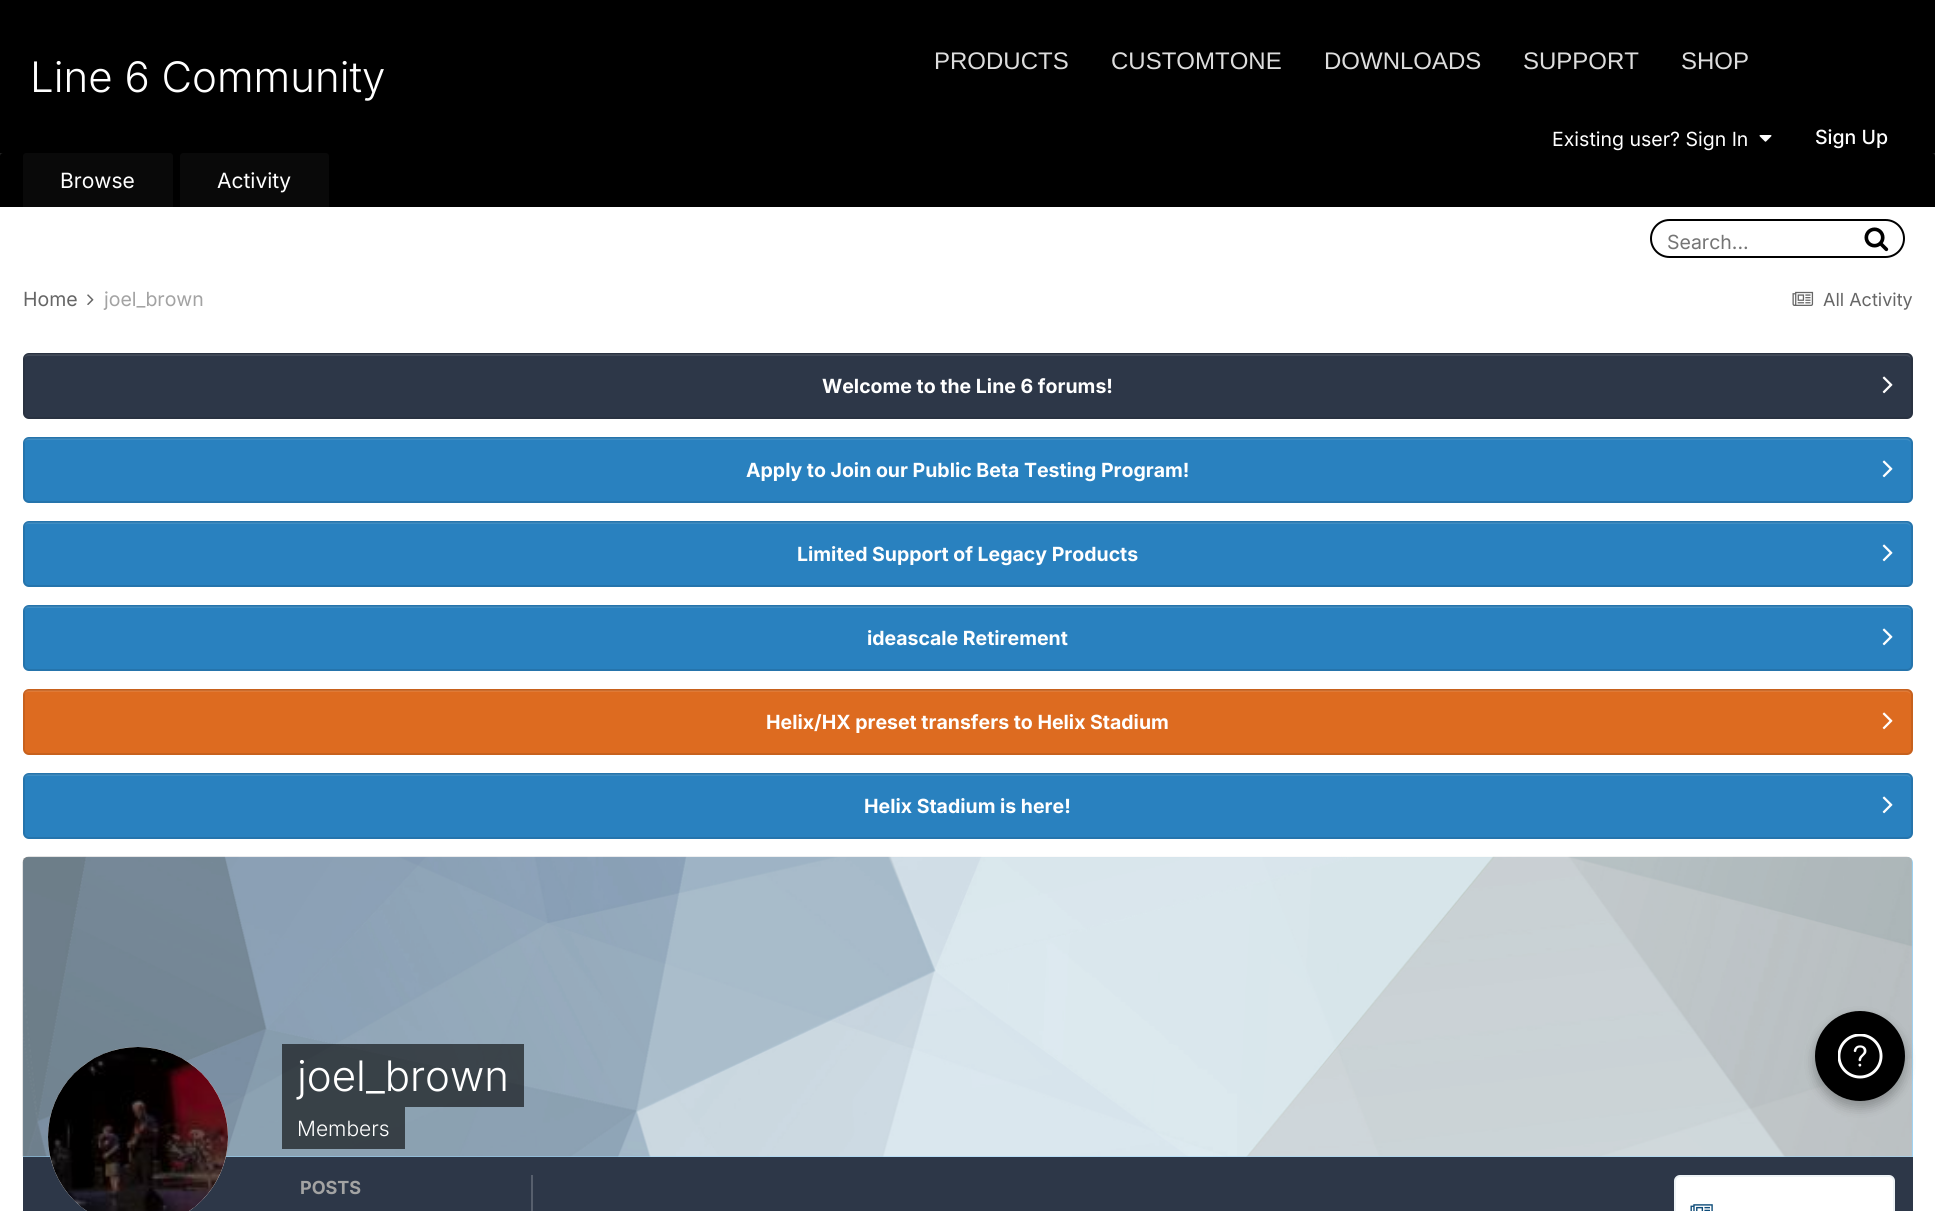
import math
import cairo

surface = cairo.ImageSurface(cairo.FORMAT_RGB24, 1935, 1211)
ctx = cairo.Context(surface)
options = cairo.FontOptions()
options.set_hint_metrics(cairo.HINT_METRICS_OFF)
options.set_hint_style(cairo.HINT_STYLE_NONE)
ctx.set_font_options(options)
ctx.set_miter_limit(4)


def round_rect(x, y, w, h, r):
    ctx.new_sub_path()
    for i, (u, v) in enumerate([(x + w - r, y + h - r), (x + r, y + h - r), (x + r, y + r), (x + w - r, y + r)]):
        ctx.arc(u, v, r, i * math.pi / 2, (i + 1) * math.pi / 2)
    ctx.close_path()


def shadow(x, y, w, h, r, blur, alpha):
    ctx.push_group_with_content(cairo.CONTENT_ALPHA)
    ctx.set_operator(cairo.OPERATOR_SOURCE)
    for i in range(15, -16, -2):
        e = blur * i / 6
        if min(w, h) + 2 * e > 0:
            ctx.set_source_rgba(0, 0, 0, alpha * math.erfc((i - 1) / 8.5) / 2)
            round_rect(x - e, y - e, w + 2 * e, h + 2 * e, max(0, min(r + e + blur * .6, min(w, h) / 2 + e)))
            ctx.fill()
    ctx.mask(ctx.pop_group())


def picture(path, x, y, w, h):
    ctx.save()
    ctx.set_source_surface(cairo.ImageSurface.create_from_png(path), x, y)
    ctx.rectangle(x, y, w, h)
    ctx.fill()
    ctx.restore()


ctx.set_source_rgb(0.133, 0.133, 0.133)
ctx.paint()
ctx.set_source_rgb(0, 0, 0)
ctx.rectangle(0, 0, 1935, 153)
ctx.fill()
ctx.select_font_face("Inter Light")
ctx.set_font_size(42)
ctx.set_source_rgb(1, 1, 1)
ctx.move_to(30, 92)
ctx.show_text("Line 6 Community")
ctx.select_font_face("Liberation Sans")
ctx.set_font_size(24)
ctx.set_source_rgb(0.867, 0.867, 0.867)
ctx.move_to(934, 69)
ctx.show_text("PRODUCTS")
ctx.move_to(1111, 69)
ctx.show_text("CUSTOMTONE")
ctx.move_to(1324, 69)
ctx.show_text("DOWNLOADS")
ctx.move_to(1523, 69)
ctx.show_text("SUPPORT")
ctx.move_to(1681, 69)
ctx.show_text("SHOP")
ctx.select_font_face("Inter")
ctx.set_font_size(19.5)
ctx.set_source_rgb(1, 1, 1)
ctx.move_to(1552, 146)
ctx.show_text("Existing user? Sign In")
picture("img1.png", 1759, 135, 13, 7)
ctx.select_font_face("Inter Medium")
ctx.move_to(1815, 144)
ctx.show_text("Sign Up")
ctx.set_source_rgb(0, 0, 0)
ctx.new_path()
ctx.move_to(3, 153)
ctx.line_to(1932, 153)
ctx.curve_to(1933.5, 153, 1935, 154.5, 1935, 156)
ctx.line_to(1935, 267)
ctx.line_to(0, 267)
ctx.line_to(0, 156)
ctx.curve_to(0, 154.5, 1.5, 153, 3, 153)
ctx.close_path()
ctx.fill()
ctx.set_source_rgb(0.039, 0.039, 0.039)
ctx.new_path()
ctx.move_to(26, 153)
ctx.line_to(170, 153)
ctx.curve_to(171.5, 153, 173, 154.5, 173, 156)
ctx.line_to(173, 207)
ctx.line_to(23, 207)
ctx.line_to(23, 156)
ctx.curve_to(23, 154.5, 24.5, 153, 26, 153)
ctx.close_path()
ctx.fill()
ctx.select_font_face("Inter")
ctx.set_font_size(21)
ctx.set_source_rgb(1, 1, 1)
ctx.move_to(60, 188)
ctx.show_text("Browse")
ctx.set_source_rgb(0.039, 0.039, 0.039)
ctx.new_path()
ctx.move_to(183, 153)
ctx.line_to(326, 153)
ctx.curve_to(327.5, 153, 329, 154.5, 329, 156)
ctx.line_to(329, 207)
ctx.line_to(180, 207)
ctx.line_to(180, 156)
ctx.curve_to(180, 154.5, 181.5, 153, 183, 153)
ctx.close_path()
ctx.fill()
ctx.set_source_rgb(1, 1, 1)
ctx.move_to(217, 188)
ctx.show_text("Activity")
ctx.rectangle(0, 207, 1935, 60)
ctx.fill()
round_rect(1651, 220, 253, 37, 18.5)
ctx.set_source_rgb(0, 0, 0)
ctx.stroke()
ctx.set_font_size(19.5)
ctx.set_source_rgb(0.459, 0.459, 0.459)
ctx.move_to(1667, 249)
ctx.show_text("Search...")
picture("img2.png", 1864, 227, 25, 25)
ctx.set_source_rgb(1, 1, 1)
ctx.rectangle(0, 267, 1935, 944)
ctx.fill()
ctx.set_source_rgb(0.4, 0.4, 0.4)
ctx.move_to(23, 306)
ctx.show_text("Home")
picture("img3.png", 87, 294, 7, 11)
ctx.set_source_rgb(0.639, 0.639, 0.639)
ctx.move_to(104, 306)
ctx.show_text("joel_brown")
picture("img4.png", 1792, 291, 22, 15)
ctx.set_font_size(18)
ctx.set_source_rgb(0.4, 0.4, 0.4)
ctx.move_to(1823, 306)
ctx.show_text("All Activity")
ctx.set_source_rgb(0.176, 0.216, 0.282)
round_rect(23, 353, 1890, 66, 6)
ctx.fill()
ctx.set_source_rgb(0.259, 0.294, 0.353)
ctx.new_path()
ctx.move_to(28, 356)
ctx.line_to(1906, 356)
ctx.curve_to(1909, 356, 1911, 358, 1911, 360)
ctx.curve_to(1911, 357, 1909, 354, 1906, 354)
ctx.line_to(29, 354)
ctx.curve_to(26, 354, 24, 357, 24, 360)
ctx.curve_to(24, 358, 26, 356, 28, 356)
ctx.close_path()
ctx.fill()
round_rect(24, 354, 1888, 64, 5)
ctx.set_source_rgba(0, 0, 0, 0.1)
ctx.stroke()
ctx.select_font_face("Inter", cairo.FONT_SLANT_NORMAL, cairo.FONT_WEIGHT_BOLD)
ctx.set_font_size(19.5)
ctx.set_source_rgb(1, 1, 1)
ctx.move_to(822, 393)
ctx.show_text("Welcome to the Line 6 forums!")
picture("img5.png", 1882, 376, 11, 18)
ctx.set_source_rgb(0.161, 0.506, 0.749)
round_rect(23, 437, 1890, 66, 6)
ctx.fill()
ctx.set_source_rgb(0.243, 0.557, 0.773)
ctx.new_path()
ctx.move_to(28, 440)
ctx.line_to(1906, 440)
ctx.curve_to(1909, 440, 1911, 442, 1911, 444)
ctx.curve_to(1911, 441, 1909, 438, 1906, 438)
ctx.line_to(29, 438)
ctx.curve_to(26, 438, 24, 441, 24, 444)
ctx.curve_to(24, 442, 26, 440, 28, 440)
ctx.close_path()
ctx.fill()
round_rect(24, 438, 1888, 64, 5)
ctx.set_source_rgba(0, 0, 0, 0.1)
ctx.stroke()
ctx.set_source_rgb(1, 1, 1)
ctx.move_to(746, 477)
ctx.show_text("Apply to Join our Public Beta Testing Program!")
picture("img6.png", 1882, 460, 11, 18)
ctx.set_source_rgb(0.161, 0.506, 0.749)
round_rect(23, 521, 1890, 66, 6)
ctx.fill()
ctx.set_source_rgb(0.243, 0.557, 0.773)
ctx.new_path()
ctx.move_to(28, 524)
ctx.line_to(1906, 524)
ctx.curve_to(1909, 524, 1911, 526, 1911, 528)
ctx.curve_to(1911, 525, 1909, 522, 1906, 522)
ctx.line_to(29, 522)
ctx.curve_to(26, 522, 24, 525, 24, 528)
ctx.curve_to(24, 526, 26, 524, 28, 524)
ctx.close_path()
ctx.fill()
round_rect(24, 522, 1888, 64, 5)
ctx.set_source_rgba(0, 0, 0, 0.1)
ctx.stroke()
ctx.set_source_rgb(1, 1, 1)
ctx.move_to(797, 561)
ctx.show_text("Limited Support of Legacy Products")
picture("img6.png", 1882, 544, 11, 18)
ctx.set_source_rgb(0.161, 0.506, 0.749)
round_rect(23, 605, 1890, 66, 6)
ctx.fill()
ctx.set_source_rgb(0.243, 0.557, 0.773)
ctx.new_path()
ctx.move_to(28, 608)
ctx.line_to(1906, 608)
ctx.curve_to(1909, 608, 1911, 610, 1911, 612)
ctx.curve_to(1911, 609, 1909, 606, 1906, 606)
ctx.line_to(29, 606)
ctx.curve_to(26, 606, 24, 609, 24, 612)
ctx.curve_to(24, 610, 26, 608, 28, 608)
ctx.close_path()
ctx.fill()
round_rect(24, 606, 1888, 64, 5)
ctx.set_source_rgba(0, 0, 0, 0.1)
ctx.stroke()
ctx.set_source_rgb(1, 1, 1)
ctx.move_to(867, 645)
ctx.show_text("ideascale Retirement")
picture("img6.png", 1882, 628, 11, 18)
ctx.set_source_rgb(0.867, 0.42, 0.125)
round_rect(23, 689, 1890, 66, 6)
ctx.fill()
ctx.set_source_rgb(0.878, 0.478, 0.212)
ctx.new_path()
ctx.move_to(28, 692)
ctx.line_to(1906, 692)
ctx.curve_to(1909, 692, 1911, 694, 1911, 696)
ctx.curve_to(1911, 693, 1909, 690, 1906, 690)
ctx.line_to(29, 690)
ctx.curve_to(26, 690, 24, 693, 24, 696)
ctx.curve_to(24, 694, 26, 692, 28, 692)
ctx.close_path()
ctx.fill()
round_rect(24, 690, 1888, 64, 5)
ctx.set_source_rgba(0, 0, 0, 0.1)
ctx.stroke()
ctx.set_source_rgb(1, 1, 1)
ctx.move_to(766, 729)
ctx.show_text("Helix/HX preset transfers to Helix Stadium")
picture("img7.png", 1882, 712, 11, 18)
ctx.set_source_rgb(0.161, 0.506, 0.749)
round_rect(23, 773, 1890, 66, 6)
ctx.fill()
ctx.set_source_rgb(0.243, 0.557, 0.773)
ctx.new_path()
ctx.move_to(28, 776)
ctx.line_to(1906, 776)
ctx.curve_to(1909, 776, 1911, 778, 1911, 780)
ctx.curve_to(1911, 777, 1909, 774, 1906, 774)
ctx.line_to(29, 774)
ctx.curve_to(26, 774, 24, 777, 24, 780)
ctx.curve_to(24, 778, 26, 776, 28, 776)
ctx.close_path()
ctx.fill()
round_rect(24, 774, 1888, 64, 5)
ctx.set_source_rgba(0, 0, 0, 0.1)
ctx.stroke()
ctx.set_source_rgb(1, 1, 1)
ctx.move_to(864, 813)
ctx.show_text("Helix Stadium is here!")
picture("img6.png", 1882, 796, 11, 18)
ctx.set_source_rgb(0.6, 0.847, 1)
ctx.new_path()
ctx.move_to(29, 857)
ctx.line_to(1907, 857)
ctx.curve_to(1910.5, 857, 1913, 859.5, 1913, 863)
ctx.line_to(1913, 1157)
ctx.line_to(23, 1157)
ctx.line_to(23, 863)
ctx.curve_to(23, 859.5, 25.5, 857, 29, 857)
ctx.close_path()
ctx.fill()
picture("img8.png", 22, 856, 1891, 301)
ctx.set_source_rgb(0.176, 0.216, 0.282)
ctx.rectangle(23, 1157, 1890, 54)
ctx.fill()
ctx.set_source_rgb(1, 1, 1)
ctx.arc(138, 1137, 90, 0, 2 * math.pi)
ctx.fill()
picture("img9.png", 48, 1047, 180, 164)
ctx.set_source_rgba(0, 0, 0, 0.6)
ctx.rectangle(282, 1044, 242, 63)
ctx.fill()
ctx.select_font_face("Inter Light")
ctx.set_font_size(42)
ctx.set_source_rgb(1, 1, 1)
ctx.move_to(297, 1091)
ctx.show_text("joel_brown")
ctx.set_source_rgba(0, 0, 0, 0.6)
ctx.rectangle(282, 1107, 123, 42)
ctx.fill()
ctx.set_font_size(21)
ctx.set_source_rgb(1, 1, 1)
ctx.move_to(297, 1136)
ctx.show_text("Members")
ctx.set_source_rgb(0.341, 0.373, 0.427)
ctx.rectangle(531, 1175, 2, 36)
ctx.fill()
ctx.select_font_face("Inter", cairo.FONT_SLANT_NORMAL, cairo.FONT_WEIGHT_BOLD)
ctx.set_font_size(18)
ctx.set_source_rgb(0.639, 0.639, 0.639)
ctx.move_to(300, 1194)
ctx.show_text("POSTS")
ctx.set_source_rgb(1, 1, 1)
round_rect(1674, 1175, 221, 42, 6)
ctx.fill()
round_rect(1675, 1176, 219, 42, 5)
ctx.set_source_rgba(0.055, 0.298, 0.475, 0.07)
ctx.stroke()
picture("img10.png", 1690, 1204, 23, 7)
ctx.set_source_rgb(0, 0, 0)
shadow(1815, 1017, 90, 90, 45, 6, 0.15)
shadow(1815, 1017, 90, 90, 45, 6, 0.15)
ctx.set_source_rgb(0, 0, 0)
ctx.arc(1860, 1056, 45, 0, 2 * math.pi)
ctx.fill()
picture("img11.png", 1838, 1034, 45, 45)
surface.write_to_png("page.png")
